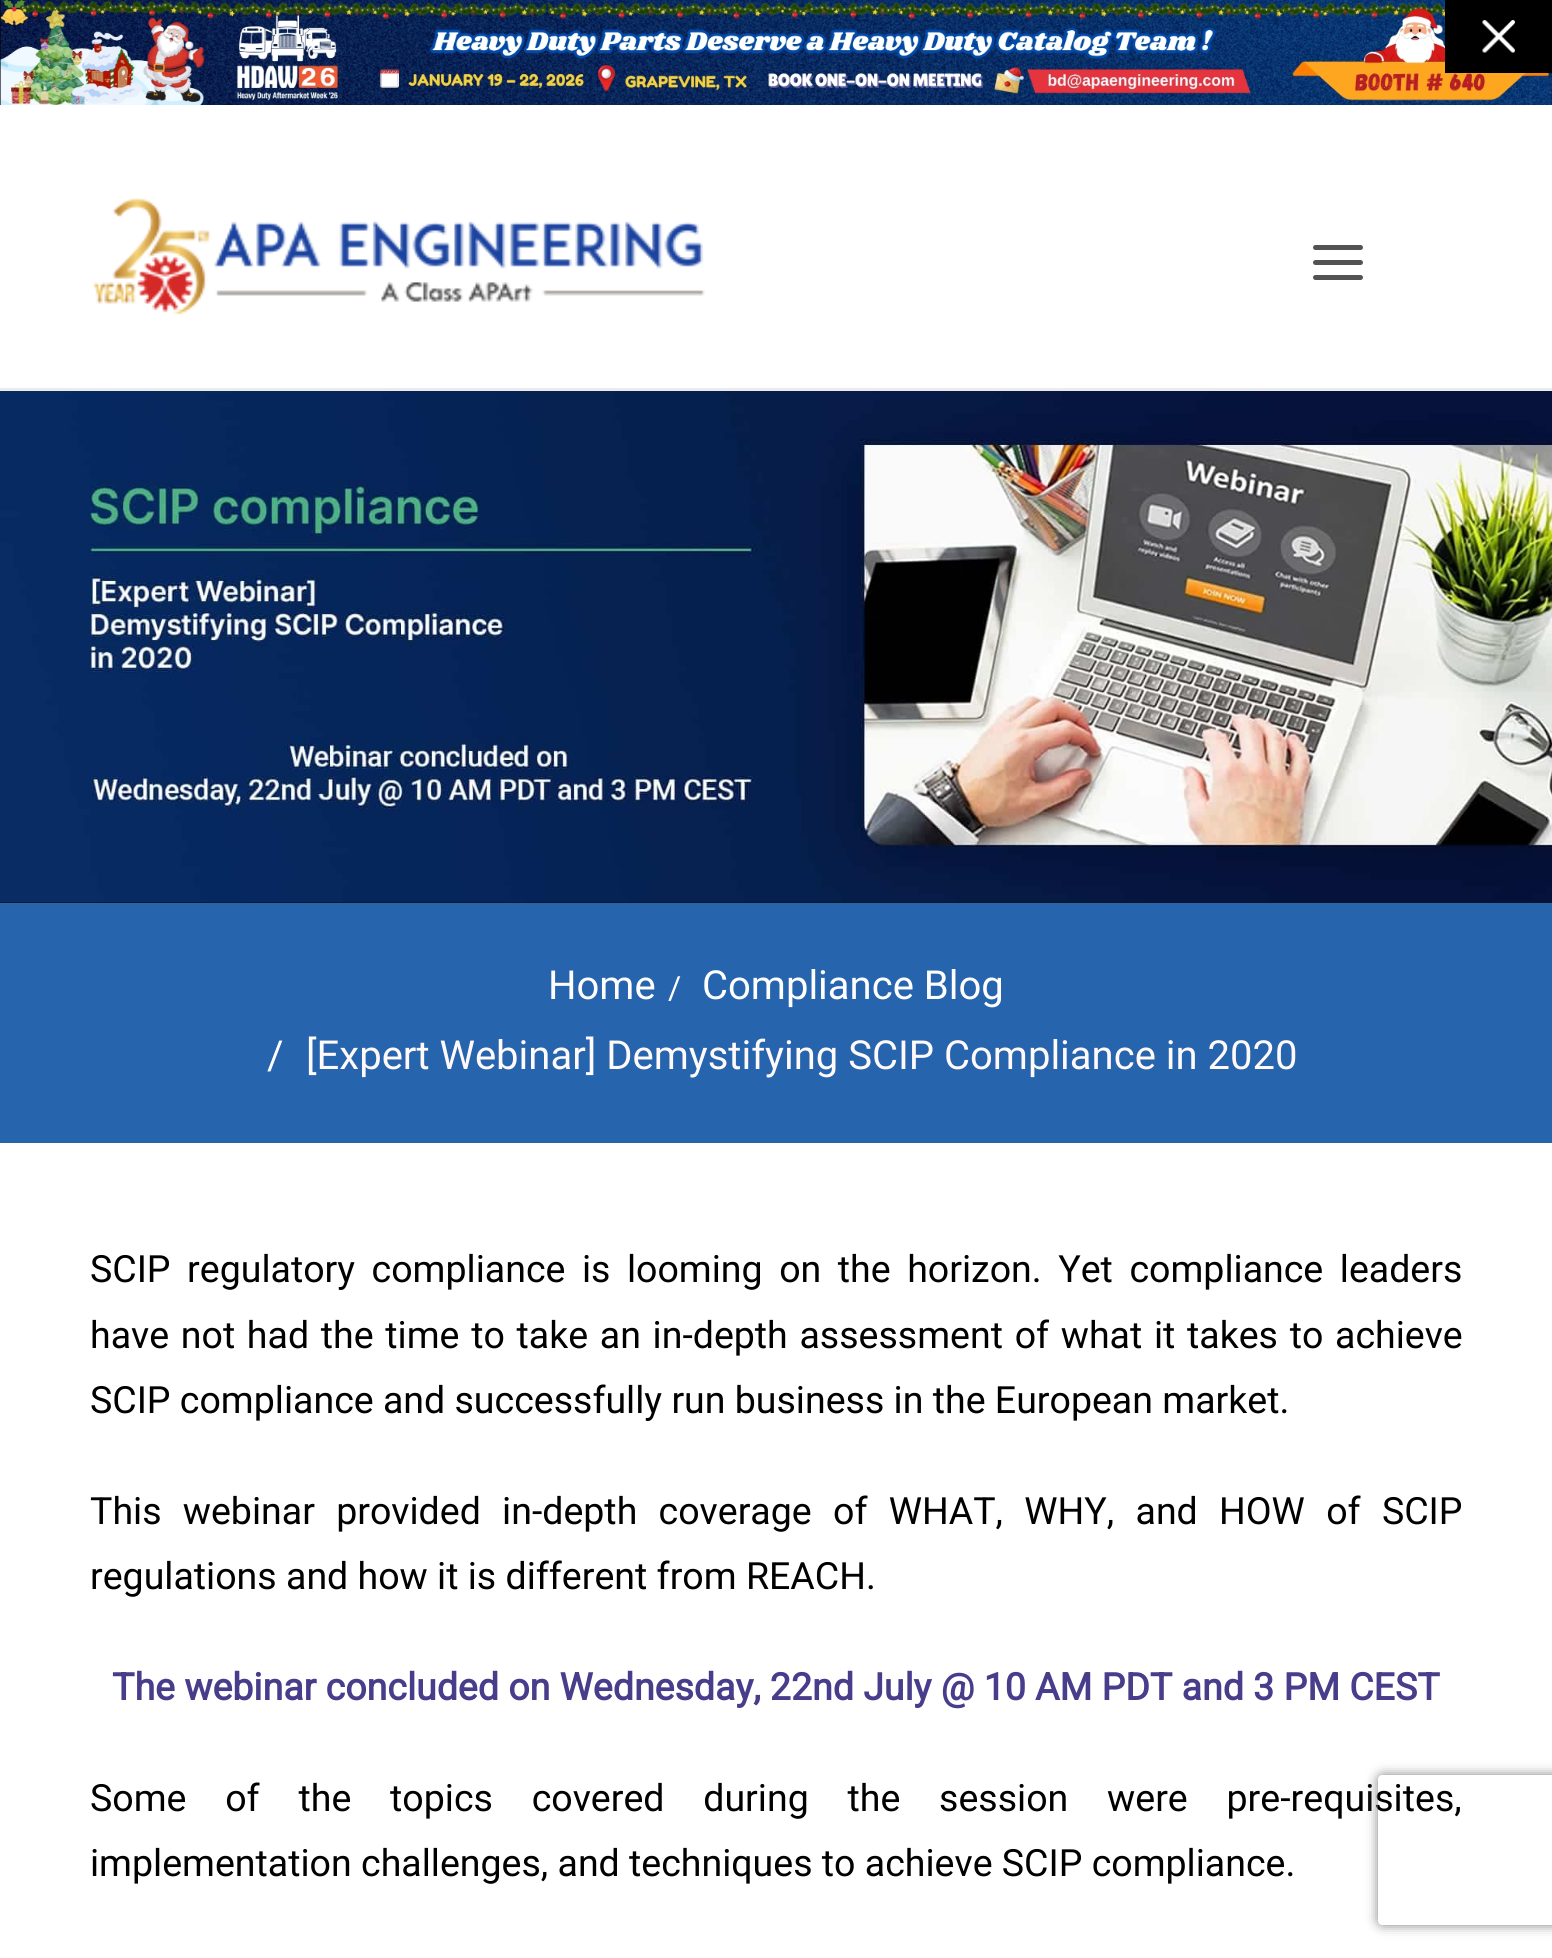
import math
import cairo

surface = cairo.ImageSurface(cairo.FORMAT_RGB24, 1552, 1958)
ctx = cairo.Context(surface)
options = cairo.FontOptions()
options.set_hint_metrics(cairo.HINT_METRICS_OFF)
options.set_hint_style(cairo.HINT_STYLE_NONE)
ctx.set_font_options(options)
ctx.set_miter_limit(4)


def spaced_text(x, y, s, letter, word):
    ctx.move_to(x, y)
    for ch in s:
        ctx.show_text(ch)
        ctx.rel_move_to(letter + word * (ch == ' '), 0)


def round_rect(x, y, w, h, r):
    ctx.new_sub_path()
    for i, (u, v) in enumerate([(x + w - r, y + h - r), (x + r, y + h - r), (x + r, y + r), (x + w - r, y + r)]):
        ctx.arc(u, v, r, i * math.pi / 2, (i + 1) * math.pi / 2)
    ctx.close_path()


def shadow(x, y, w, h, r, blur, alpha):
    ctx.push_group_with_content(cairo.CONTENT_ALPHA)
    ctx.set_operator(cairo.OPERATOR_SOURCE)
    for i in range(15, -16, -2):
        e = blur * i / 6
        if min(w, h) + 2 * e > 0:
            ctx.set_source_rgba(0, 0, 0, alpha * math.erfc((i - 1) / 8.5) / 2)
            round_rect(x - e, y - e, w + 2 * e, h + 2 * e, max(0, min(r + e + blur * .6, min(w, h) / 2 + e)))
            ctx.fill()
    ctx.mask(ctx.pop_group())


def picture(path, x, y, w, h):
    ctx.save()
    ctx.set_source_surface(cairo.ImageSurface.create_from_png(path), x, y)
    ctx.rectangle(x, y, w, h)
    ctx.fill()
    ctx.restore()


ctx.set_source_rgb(0.078, 0.086, 0.094)
ctx.paint()
ctx.set_source_rgb(1, 1, 1)
ctx.rectangle(0, 105, 1552, 283)
ctx.fill()
picture("img1.png", 0, 0, 1552, 105)
ctx.set_source_rgb(0, 0, 0)
ctx.rectangle(1445, 0, 107, 73)
ctx.fill()
picture("img2.png", 1482, 20, 33, 33)
ctx.set_source_rgb(0.918, 0.918, 0.918)
ctx.rectangle(0, 388, 1552, 3)
ctx.fill()
picture("img3.png", 93, 198, 612, 117)
ctx.set_source_rgb(0.318, 0.325, 0.329)
round_rect(1313, 260, 50, 5, 2.5)
ctx.fill()
round_rect(1313, 245, 50, 5, 2.5)
ctx.fill()
round_rect(1313, 275, 50, 5, 2.5)
ctx.fill()
picture("img4.png", 0, 391, 1552, 512)
ctx.set_source_rgb(0.149, 0.392, 0.678)
ctx.rectangle(0, 903, 1552, 240)
ctx.fill()
ctx.select_font_face("Roboto")
ctx.set_font_size(40)
ctx.set_source_rgb(1, 1, 1)
ctx.move_to(548, 999)
ctx.show_text("Home")
ctx.set_font_size(32)
ctx.move_to(668, 999)
ctx.show_text("/")
ctx.set_font_size(40)
ctx.move_to(702, 999)
ctx.show_text("Compliance Blog")
ctx.move_to(267, 1069)
ctx.show_text("/")
ctx.set_source_rgb(1, 0.973, 0.973)
ctx.move_to(306, 1069)
ctx.show_text("[Expert Webinar] Demystifying SCIP Compliance in 2020")
ctx.set_source_rgb(1, 1, 1)
ctx.rectangle(0, 1143, 1552, 815)
ctx.fill()
ctx.set_font_size(37.5)
ctx.set_source_rgb(0, 0, 0)
spaced_text(90, 1282, "SCIP regulatory compliance is looming on the horizon. Yet compliance leaders", 0, 7.25)
spaced_text(90, 1348, "have not had the time to take an in-depth assessment of what it takes to achieve", 0, 2.4)
ctx.move_to(90, 1413)
ctx.show_text("SCIP compliance and successfully run business in the European market.")
spaced_text(90, 1524, "This webinar provided in-depth coverage of WHAT, WHY, and HOW of SCIP", 0, 12)
ctx.move_to(90, 1589)
ctx.show_text("regulations and how it is different from REACH.")
ctx.select_font_face("Roboto", cairo.FONT_SLANT_NORMAL, cairo.FONT_WEIGHT_BOLD)
ctx.set_source_rgb(0.282, 0.239, 0.545)
ctx.move_to(112, 1700)
ctx.show_text("The webinar concluded on Wednesday, 22nd July @ 10 AM PDT and 3 PM CEST")
ctx.select_font_face("Roboto")
ctx.set_source_rgb(0, 0, 0)
spaced_text(90, 1811, "Some of the topics covered during the session were pre-requisites,", 0, 29.5)
ctx.move_to(90, 1876)
ctx.show_text("implementation challenges, and techniques to achieve SCIP compliance.")
ctx.save()
ctx.set_fill_rule(cairo.FILL_RULE_EVEN_ODD)
ctx.new_path()
ctx.move_to(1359, 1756)
ctx.line_to(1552, 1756)
ctx.line_to(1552, 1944)
ctx.line_to(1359, 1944)
ctx.close_path()
ctx.move_to(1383, 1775)
ctx.line_to(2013, 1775)
ctx.curve_to(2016, 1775, 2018, 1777, 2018, 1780)
ctx.line_to(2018, 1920)
ctx.curve_to(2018, 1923, 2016, 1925, 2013, 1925)
ctx.line_to(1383, 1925)
ctx.curve_to(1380, 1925, 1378, 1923, 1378, 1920)
ctx.line_to(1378, 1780)
ctx.curve_to(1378, 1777, 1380, 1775, 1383, 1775)
ctx.close_path()
ctx.clip()
ctx.set_source_rgb(0.502, 0.502, 0.502)
shadow(1378, 1775, 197, 150, 5, 6, 1)
ctx.restore()
surface.write_to_png("page.png")
